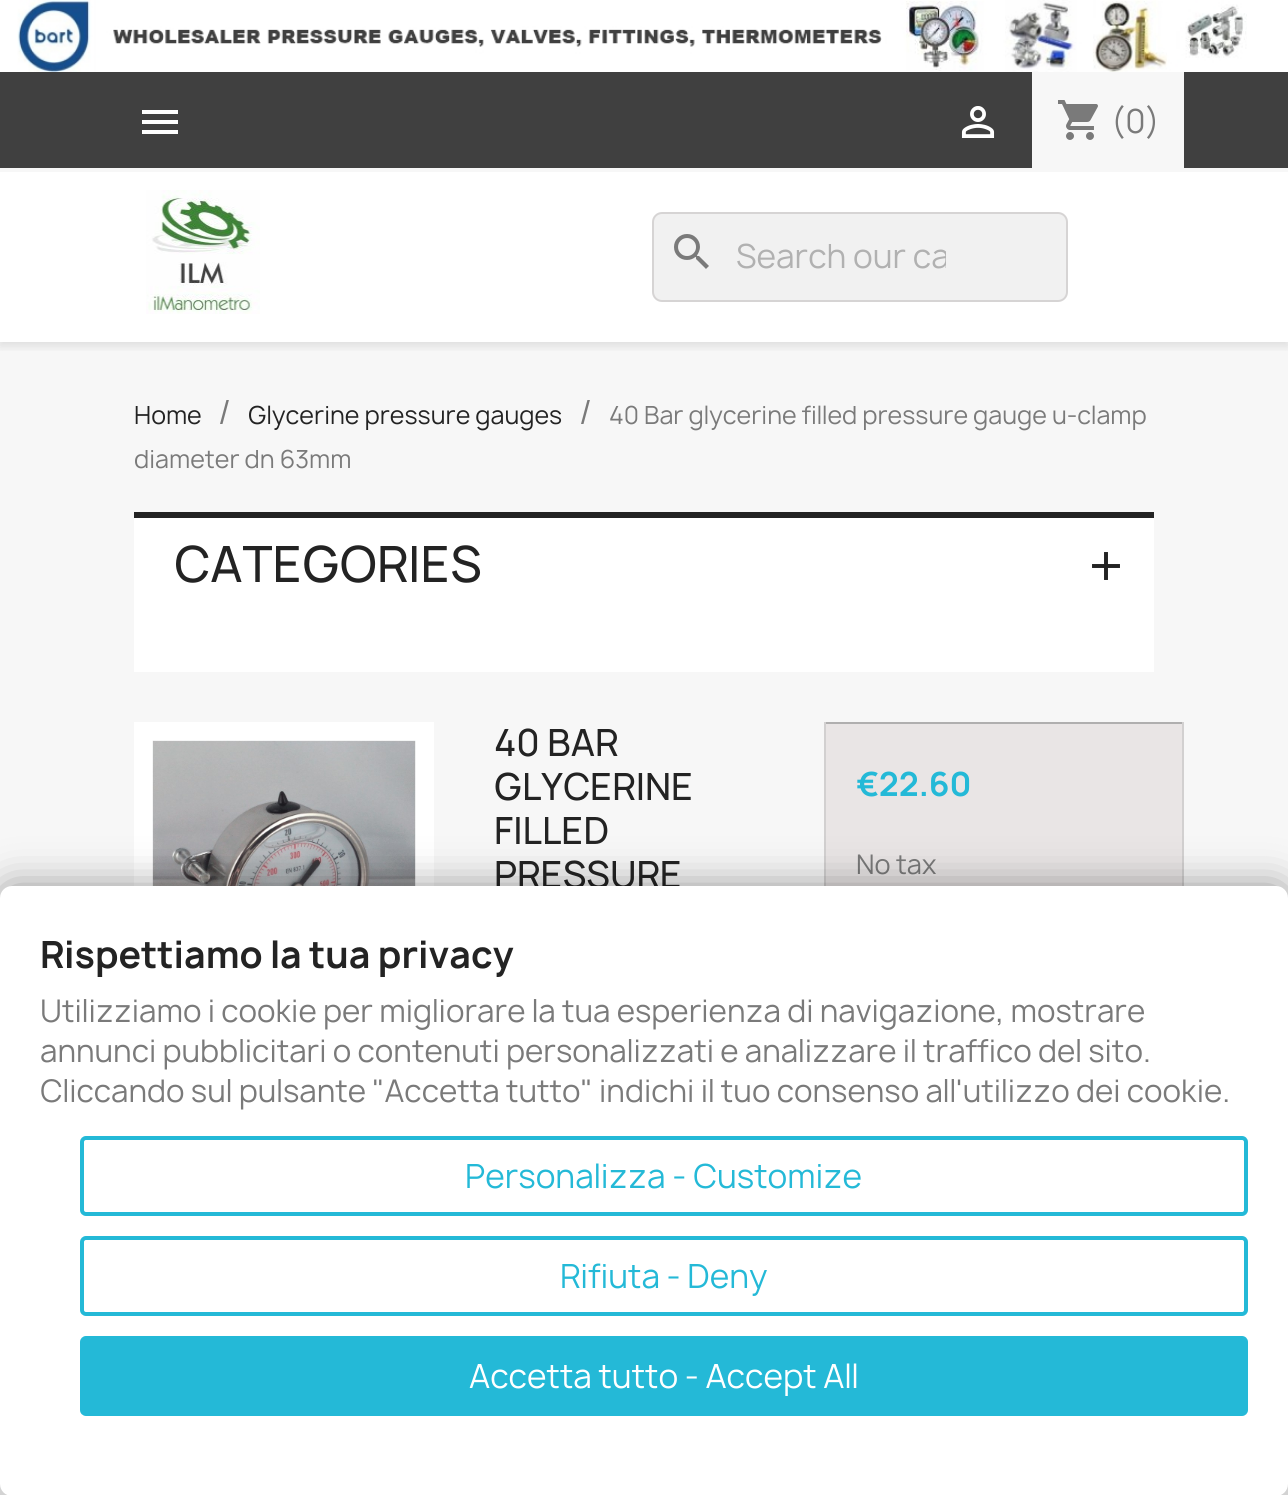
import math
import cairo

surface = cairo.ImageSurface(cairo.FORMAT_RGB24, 1288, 1495)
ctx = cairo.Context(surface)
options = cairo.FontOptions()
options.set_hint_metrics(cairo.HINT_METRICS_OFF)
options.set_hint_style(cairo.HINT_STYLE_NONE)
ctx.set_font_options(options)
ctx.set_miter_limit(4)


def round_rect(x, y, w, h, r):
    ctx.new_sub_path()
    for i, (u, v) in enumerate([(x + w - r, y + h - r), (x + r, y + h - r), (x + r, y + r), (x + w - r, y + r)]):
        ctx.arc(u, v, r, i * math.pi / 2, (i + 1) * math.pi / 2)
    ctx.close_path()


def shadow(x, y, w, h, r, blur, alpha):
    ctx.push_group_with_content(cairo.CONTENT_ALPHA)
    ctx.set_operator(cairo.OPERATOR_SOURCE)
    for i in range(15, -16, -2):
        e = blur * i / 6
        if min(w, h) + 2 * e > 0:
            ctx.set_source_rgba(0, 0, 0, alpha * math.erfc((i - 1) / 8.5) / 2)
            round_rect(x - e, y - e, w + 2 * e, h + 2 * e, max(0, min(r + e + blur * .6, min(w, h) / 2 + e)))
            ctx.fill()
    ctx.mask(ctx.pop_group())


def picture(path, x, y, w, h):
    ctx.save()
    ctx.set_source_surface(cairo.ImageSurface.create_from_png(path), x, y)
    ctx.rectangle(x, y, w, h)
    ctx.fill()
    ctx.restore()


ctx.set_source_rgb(1, 1, 1)
ctx.paint()
ctx.set_source_rgb(0.965, 0.965, 0.965)
ctx.rectangle(0, 342, 1288, 1153)
ctx.fill()
ctx.save()
ctx.rectangle(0, 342, 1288, 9)
ctx.clip()
ctx.set_source_rgb(0, 0, 0)
shadow(0, 4, 1288, 342, 0, 5, 0.11)
ctx.restore()
picture("img1.png", 17, 0, 1230, 72)
ctx.set_source_rgb(0.251, 0.251, 0.251)
ctx.rectangle(0, 72, 1288, 96)
ctx.fill()
ctx.set_source_rgb(0.965, 0.965, 0.965)
ctx.rectangle(0, 168, 1288, 4)
ctx.fill()
ctx.set_source_rgb(1, 1, 1)
ctx.new_path()
ctx.move_to(142, 110)
ctx.line_to(178, 110)
ctx.line_to(178, 114)
ctx.line_to(142, 114)
ctx.close_path()
ctx.move_to(142, 124)
ctx.line_to(142, 120)
ctx.line_to(178, 120)
ctx.line_to(178, 124)
ctx.close_path()
ctx.move_to(142, 134)
ctx.line_to(142, 130)
ctx.line_to(178, 130)
ctx.line_to(178, 134)
ctx.close_path()
ctx.fill()
picture("img2.png", 961, 106, 34, 32)
ctx.set_source_rgb(0.965, 0.965, 0.965)
ctx.rectangle(1032, 72, 152, 96)
ctx.fill()
picture("img3.png", 1058, 100, 40, 40)
ctx.select_font_face("Manrope")
ctx.set_font_size(32)
ctx.set_source_rgb(0.478, 0.478, 0.478)
ctx.move_to(1111, 133)
ctx.show_text("(0)")
picture("img4.png", 146, 190, 114, 124)
ctx.set_source_rgb(0.945, 0.945, 0.945)
round_rect(653, 213, 414, 88, 9)
ctx.fill_preserve()
ctx.set_source_rgb(0.839, 0.831, 0.831)
ctx.stroke()
picture("img5.png", 674, 234, 35, 35)
ctx.save()
ctx.rectangle(736, 230, 210, 54)
ctx.clip()
ctx.set_source_rgb(0.694, 0.694, 0.694)
ctx.move_to(736, 268)
ctx.show_text("Search our ca")
ctx.restore()
ctx.set_font_size(24)
ctx.set_source_rgb(0.137, 0.137, 0.137)
ctx.move_to(134, 424)
ctx.show_text("Home")
ctx.set_font_size(32)
ctx.set_source_rgb(0.478, 0.478, 0.478)
ctx.move_to(218, 424)
ctx.show_text("/")
ctx.set_font_size(24)
ctx.set_source_rgb(0.137, 0.137, 0.137)
ctx.move_to(248, 424)
ctx.show_text("Glycerine pressure gauges")
ctx.set_font_size(32)
ctx.set_source_rgb(0.478, 0.478, 0.478)
ctx.move_to(579, 424)
ctx.show_text("/")
ctx.set_font_size(24)
ctx.move_to(609, 424)
ctx.show_text("40 Bar glycerine filled pressure gauge u-clamp")
ctx.move_to(134, 468)
ctx.show_text("diameter dn 63mm")
ctx.set_source_rgb(1, 1, 1)
ctx.rectangle(134, 518, 1020, 154)
ctx.fill()
ctx.set_source_rgb(0.137, 0.137, 0.137)
ctx.rectangle(134, 512, 1020, 6)
ctx.fill()
ctx.select_font_face("Manrope Medium")
ctx.set_font_size(48)
ctx.move_to(174, 582)
ctx.show_text("CATEGORIES")
picture("img6.png", 1092, 552, 28, 28)
ctx.set_source_rgb(1, 1, 1)
ctx.rectangle(134, 722, 300, 164)
ctx.fill()
picture("img7.png", 152, 740, 264, 146)
ctx.set_font_size(36)
ctx.set_source_rgb(0.137, 0.137, 0.137)
ctx.move_to(494, 756)
ctx.show_text("40 BAR")
ctx.move_to(494, 800)
ctx.show_text("GLYCERINE")
ctx.move_to(494, 844)
ctx.show_text("FILLED")
ctx.move_to(494, 888)
ctx.show_text("PRESSURE")
ctx.set_source_rgb(0.914, 0.898, 0.898)
ctx.rectangle(826, 724, 356, 162)
ctx.fill()
ctx.set_source_rgb(0.69, 0.686, 0.686)
ctx.rectangle(824, 722, 360, 2)
ctx.fill()
ctx.set_source_rgb(0.824, 0.816, 0.816)
ctx.rectangle(1182, 722, 2, 164)
ctx.fill()
ctx.rectangle(824, 722, 2, 164)
ctx.fill()
ctx.select_font_face("Manrope", cairo.FONT_SLANT_NORMAL, cairo.FONT_WEIGHT_BOLD)
ctx.set_font_size(32)
ctx.set_source_rgb(0.141, 0.725, 0.843)
ctx.move_to(856, 796)
ctx.show_text("€22.60")
ctx.select_font_face("Manrope")
ctx.set_font_size(26)
ctx.set_source_rgb(0.478, 0.478, 0.478)
ctx.move_to(856, 874)
ctx.show_text("No tax")
ctx.set_source_rgb(0, 0, 0)
shadow(0, 886, 1288, 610, 12, 20, 0.4)
ctx.set_source_rgb(1, 1, 1)
round_rect(0, 886, 1288, 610, 12)
ctx.fill()
ctx.select_font_face("Manrope", cairo.FONT_SLANT_NORMAL, cairo.FONT_WEIGHT_BOLD)
ctx.set_font_size(36)
ctx.set_source_rgb(0.137, 0.137, 0.137)
ctx.move_to(40, 968)
ctx.show_text("Rispettiamo la tua privacy")
ctx.select_font_face("Manrope")
ctx.set_font_size(30)
ctx.set_source_rgb(0.478, 0.478, 0.478)
ctx.move_to(40, 1022)
ctx.show_text("Utilizziamo i cookie per migliorare la tua esperienza di navigazione, mostrare")
ctx.move_to(40, 1062)
ctx.show_text("annunci pubblicitari o contenuti personalizzati e analizzare il traffico del sito.")
ctx.move_to(40, 1102)
ctx.show_text("Cliccando sul pulsante \"Accetta tutto\" indichi il tuo consenso all'utilizzo dei cookie.")
round_rect(82, 1138, 1164, 76, 4)
ctx.set_source_rgb(0.141, 0.725, 0.843)
ctx.set_line_width(4)
ctx.stroke()
ctx.set_font_size(32)
ctx.move_to(465, 1188)
ctx.show_text("Personalizza - Customize")
round_rect(82, 1238, 1164, 76, 4)
ctx.stroke()
ctx.move_to(560, 1288)
ctx.show_text("Rifiuta - Deny")
round_rect(82, 1338, 1164, 76, 4)
ctx.fill_preserve()
ctx.stroke()
ctx.set_source_rgb(1, 1, 1)
ctx.move_to(469, 1388)
ctx.show_text("Accetta tutto - Accept All")
surface.write_to_png("page.png")
